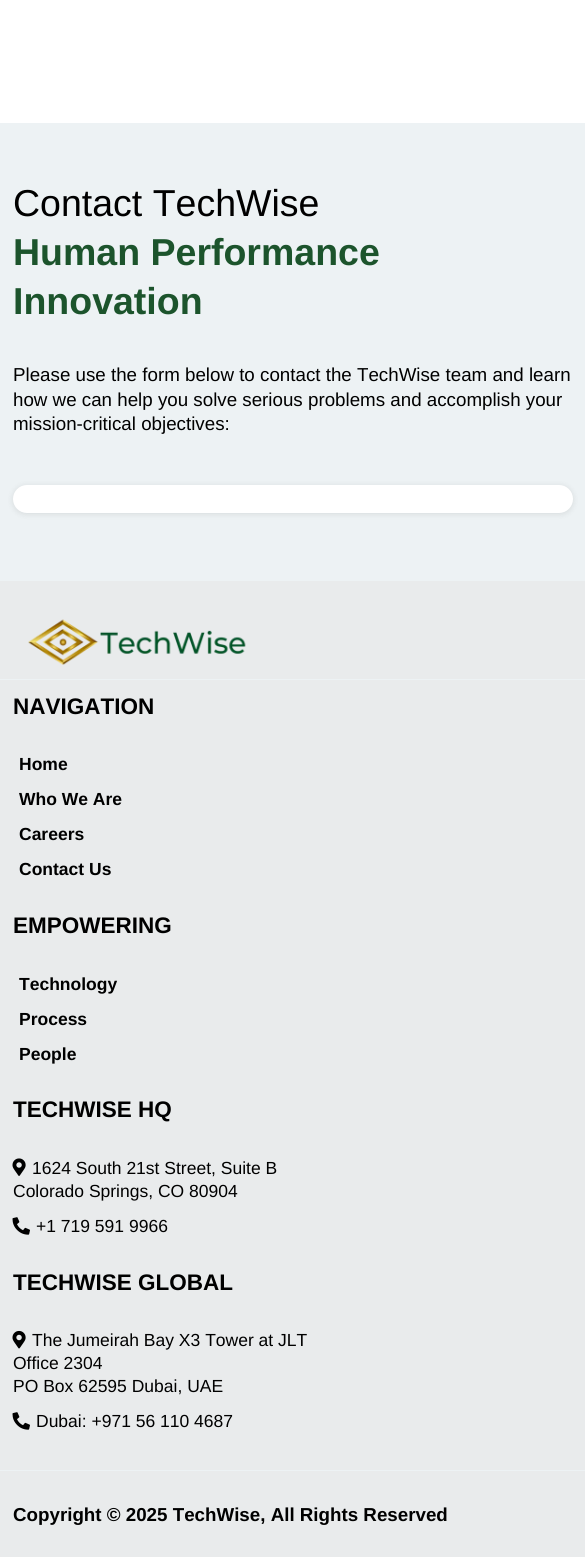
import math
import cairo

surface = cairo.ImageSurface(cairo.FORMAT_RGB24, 585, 1557)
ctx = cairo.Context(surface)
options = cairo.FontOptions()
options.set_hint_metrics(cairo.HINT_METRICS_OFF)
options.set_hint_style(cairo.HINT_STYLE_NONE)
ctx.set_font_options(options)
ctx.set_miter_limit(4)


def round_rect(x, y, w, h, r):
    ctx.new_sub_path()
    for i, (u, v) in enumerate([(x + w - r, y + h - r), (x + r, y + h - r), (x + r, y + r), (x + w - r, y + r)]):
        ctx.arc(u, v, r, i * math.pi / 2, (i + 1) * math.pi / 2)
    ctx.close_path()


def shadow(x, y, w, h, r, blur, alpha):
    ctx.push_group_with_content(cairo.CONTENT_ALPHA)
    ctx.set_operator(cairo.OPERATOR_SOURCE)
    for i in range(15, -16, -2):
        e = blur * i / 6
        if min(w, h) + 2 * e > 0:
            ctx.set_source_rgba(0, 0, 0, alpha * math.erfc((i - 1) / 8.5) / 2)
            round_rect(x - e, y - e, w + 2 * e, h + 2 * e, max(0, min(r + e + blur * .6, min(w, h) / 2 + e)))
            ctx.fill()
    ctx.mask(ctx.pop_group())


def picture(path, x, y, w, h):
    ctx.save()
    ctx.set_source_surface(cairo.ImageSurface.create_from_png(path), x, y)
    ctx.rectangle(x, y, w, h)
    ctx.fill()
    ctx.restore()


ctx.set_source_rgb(1, 1, 1)
ctx.paint()
ctx.set_source_rgb(0.929, 0.949, 0.957)
ctx.rectangle(0, 123, 585, 458)
ctx.fill()
ctx.select_font_face("Liberation Sans")
ctx.set_font_size(37.5)
ctx.set_source_rgb(0, 0, 0)
ctx.move_to(13, 216)
ctx.show_text("Contact TechWise")
ctx.select_font_face("Liberation Sans", cairo.FONT_SLANT_NORMAL, cairo.FONT_WEIGHT_BOLD)
ctx.set_source_rgb(0.11, 0.329, 0.173)
ctx.move_to(13, 265)
ctx.show_text("Human Performance")
ctx.move_to(13, 314)
ctx.show_text("Innovation")
ctx.select_font_face("Liberation Sans")
ctx.set_font_size(18.75)
ctx.set_source_rgb(0, 0, 0)
ctx.move_to(13, 381)
ctx.show_text("Please use the form below to contact the TechWise team and learn")
ctx.move_to(13, 406)
ctx.show_text("how we can help you solve serious problems and accomplish your")
ctx.move_to(13, 430)
ctx.show_text("mission-critical objectives:")
ctx.set_source_rgb(0, 0, 0)
shadow(13, 486, 560, 28, 14, 3, 0.1)
ctx.set_source_rgb(1, 1, 1)
round_rect(13, 485, 560, 28, 14)
ctx.fill()
ctx.set_source_rgb(0.914, 0.918, 0.925)
ctx.rectangle(0, 581, 585, 976)
ctx.fill()
ctx.set_source_rgb(0.929, 0.949, 0.957)
ctx.rectangle(0, 679, 585, 1)
ctx.fill()
picture("img1.png", 28, 619, 218, 46)
ctx.rectangle(0, 1470, 585, 1)
ctx.fill()
ctx.select_font_face("Liberation Sans", cairo.FONT_SLANT_NORMAL, cairo.FONT_WEIGHT_BOLD)
ctx.set_font_size(22.5)
ctx.set_source_rgb(0, 0, 0)
ctx.move_to(13, 714)
ctx.show_text("NAVIGATION")
ctx.set_font_size(17.5)
ctx.move_to(19, 770)
ctx.show_text("Home")
ctx.move_to(19, 805)
ctx.show_text("Who We Are")
ctx.move_to(19, 840)
ctx.show_text("Careers")
ctx.move_to(19, 875)
ctx.show_text("Contact Us")
ctx.set_font_size(22.5)
ctx.move_to(13, 933)
ctx.show_text("EMPOWERING")
ctx.set_font_size(17.5)
ctx.move_to(19, 990)
ctx.show_text("Technology")
ctx.move_to(19, 1025)
ctx.show_text("Process")
ctx.move_to(19, 1060)
ctx.show_text("People")
ctx.set_font_size(22.5)
ctx.move_to(13, 1117)
ctx.show_text("TECHWISE HQ")
picture("img2.png", 12, 1158, 14, 18)
ctx.select_font_face("Liberation Sans")
ctx.set_font_size(17.5)
ctx.move_to(32, 1174)
ctx.show_text("1624 South 21st Street, Suite B")
ctx.move_to(13, 1197)
ctx.show_text("Colorado Springs, CO 80904")
picture("img3.png", 12, 1217, 18, 18)
ctx.move_to(36, 1232)
ctx.show_text("+1 719 591 9966")
ctx.select_font_face("Liberation Sans", cairo.FONT_SLANT_NORMAL, cairo.FONT_WEIGHT_BOLD)
ctx.set_font_size(22.5)
ctx.move_to(13, 1290)
ctx.show_text("TECHWISE GLOBAL")
picture("img4.png", 12, 1330, 14, 19)
ctx.select_font_face("Liberation Sans")
ctx.set_font_size(17.5)
ctx.move_to(32, 1346)
ctx.show_text("The Jumeirah Bay X3 Tower at JLT")
ctx.move_to(13, 1369)
ctx.show_text("Office 2304")
ctx.move_to(13, 1392)
ctx.show_text("PO Box 62595 Dubai, UAE")
picture("img3.png", 12, 1412, 18, 18)
ctx.move_to(36, 1427)
ctx.show_text("Dubai: +971 56 110 4687")
ctx.select_font_face("Liberation Sans", cairo.FONT_SLANT_NORMAL, cairo.FONT_WEIGHT_BOLD)
ctx.set_font_size(18.75)
ctx.move_to(13, 1521)
ctx.show_text("Copyright © 2025 TechWise, All Rights Reserved")
surface.write_to_png("page.png")
